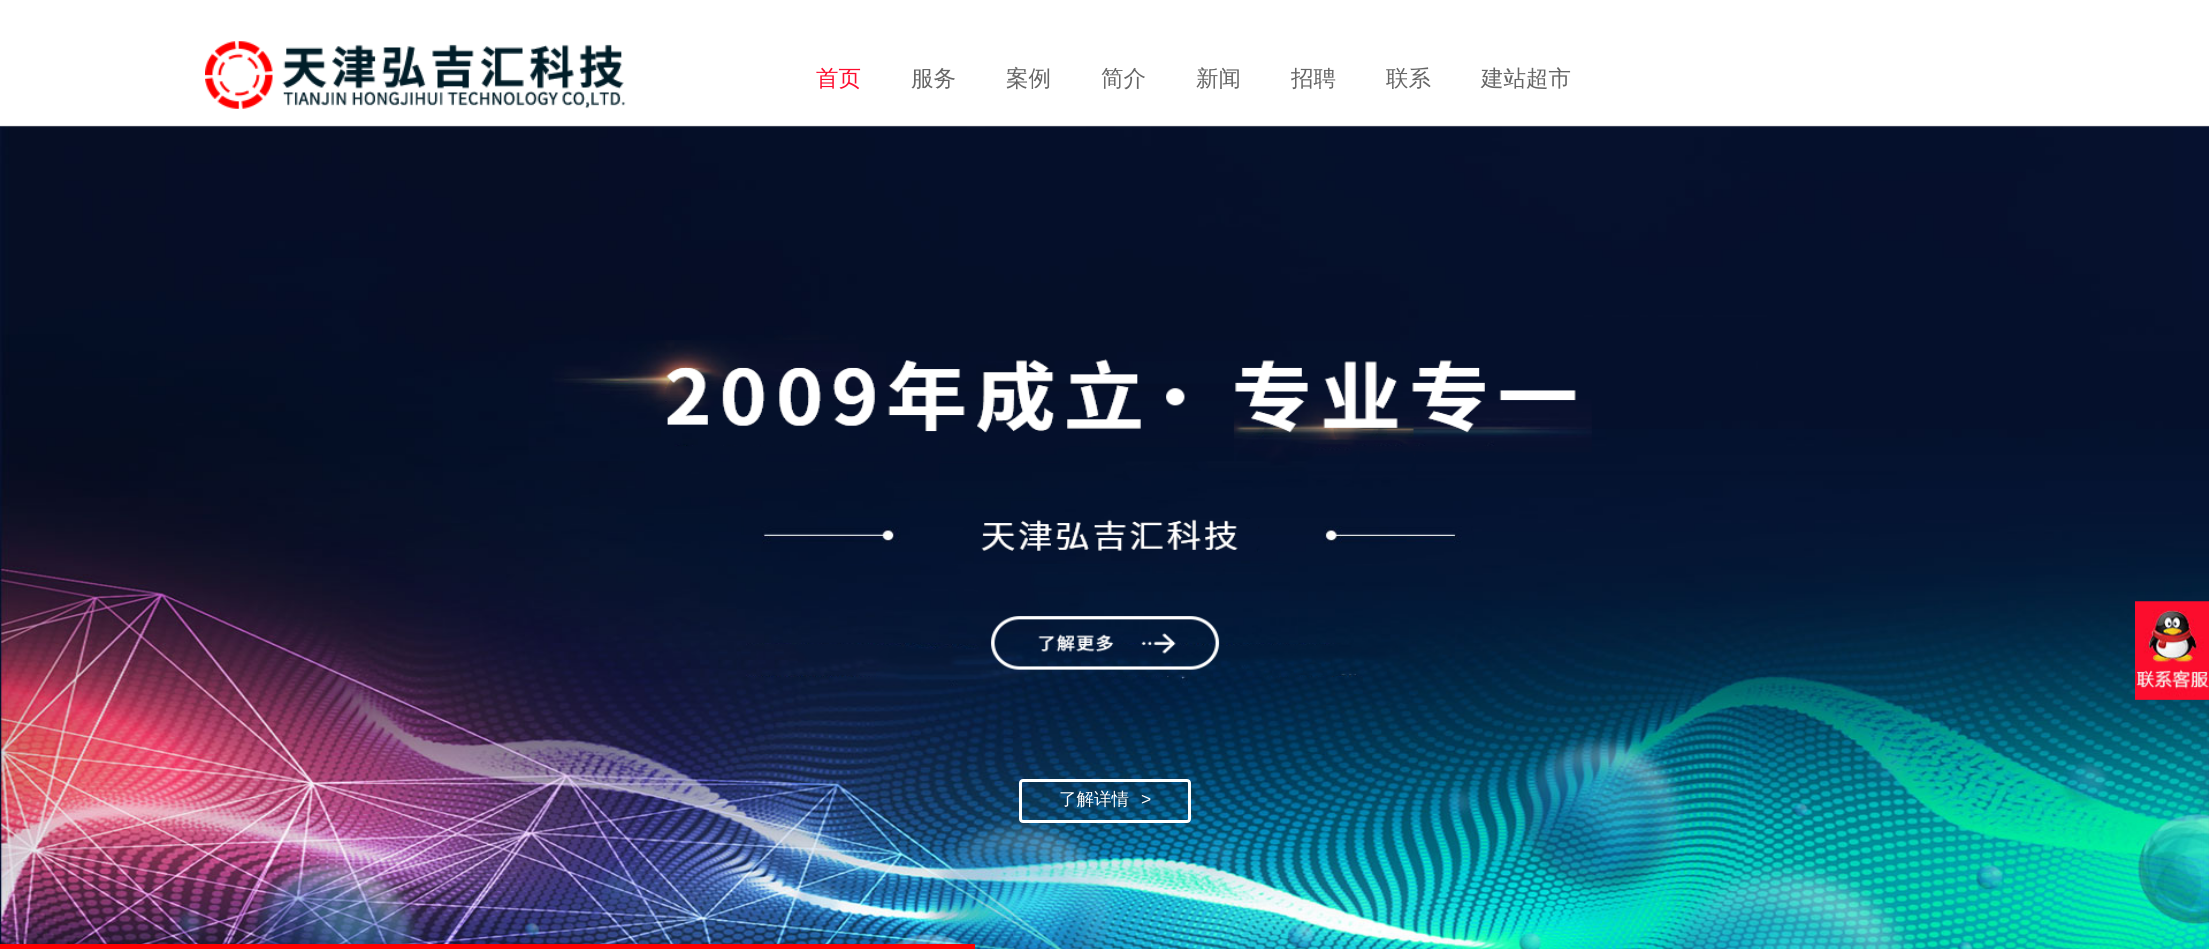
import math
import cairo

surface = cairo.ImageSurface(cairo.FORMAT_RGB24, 2209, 949)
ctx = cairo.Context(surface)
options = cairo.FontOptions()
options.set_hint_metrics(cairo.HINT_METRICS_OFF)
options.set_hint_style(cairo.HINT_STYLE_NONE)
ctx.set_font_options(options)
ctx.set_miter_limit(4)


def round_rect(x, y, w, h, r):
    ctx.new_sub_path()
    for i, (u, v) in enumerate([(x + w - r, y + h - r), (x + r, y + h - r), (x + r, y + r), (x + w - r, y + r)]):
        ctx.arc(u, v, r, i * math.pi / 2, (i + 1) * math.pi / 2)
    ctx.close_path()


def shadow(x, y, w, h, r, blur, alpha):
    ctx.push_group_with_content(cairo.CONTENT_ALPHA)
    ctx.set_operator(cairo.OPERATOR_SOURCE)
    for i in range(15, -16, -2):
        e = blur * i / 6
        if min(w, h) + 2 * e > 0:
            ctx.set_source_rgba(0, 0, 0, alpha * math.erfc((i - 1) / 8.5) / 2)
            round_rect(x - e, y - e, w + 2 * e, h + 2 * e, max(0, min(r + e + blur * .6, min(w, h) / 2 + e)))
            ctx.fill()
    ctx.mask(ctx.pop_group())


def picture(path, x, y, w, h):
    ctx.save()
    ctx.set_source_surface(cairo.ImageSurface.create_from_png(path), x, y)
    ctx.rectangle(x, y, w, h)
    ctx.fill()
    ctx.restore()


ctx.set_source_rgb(1, 1, 1)
ctx.paint()
picture("img3.png", 0, 126, 2209, 823)
ctx.set_source_rgb(0.867, 0.867, 0.867)
shadow(0, 0, 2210, 126, 0, 0.5, 1)
ctx.set_source_rgb(1, 1, 1)
ctx.rectangle(0, 0, 2209, 125)
ctx.fill()
ctx.set_source_rgb(0.941, 0.941, 0.941)
ctx.rectangle(0, 125, 2209, 1)
ctx.fill()
picture("img1.png", 205, 41, 421, 68)
ctx.select_font_face("WenQuanYi Zen Hei Medium")
ctx.set_font_size(22.5)
ctx.set_source_rgb(0.992, 0.051, 0.18)
ctx.move_to(816, 86)
ctx.show_text("首页")
ctx.set_source_rgb(0.4, 0.4, 0.4)
ctx.move_to(911, 86)
ctx.show_text("服务")
ctx.move_to(1006, 86)
ctx.show_text("案例")
ctx.move_to(1101, 86)
ctx.show_text("简介")
ctx.move_to(1196, 86)
ctx.show_text("新闻")
ctx.move_to(1291, 86)
ctx.show_text("招聘")
ctx.move_to(1386, 86)
ctx.show_text("联系")
ctx.move_to(1481, 86)
ctx.show_text("建站超市")
picture("img2.png", 2135, 601, 74, 99)
round_rect(1020.5, 780.5, 169, 41, 2.5)
ctx.set_source_rgb(1, 1, 1)
ctx.set_line_width(3)
ctx.stroke()
ctx.set_font_size(17.5)
ctx.move_to(1059, 805)
ctx.show_text("了解详情")
ctx.select_font_face("Liberation Sans")
ctx.move_to(1141, 805)
ctx.show_text(">")
ctx.set_source_rgb(1, 0, 0)
ctx.rectangle(0, 944, 975, 5)
ctx.fill()
surface.write_to_png("page.png")
